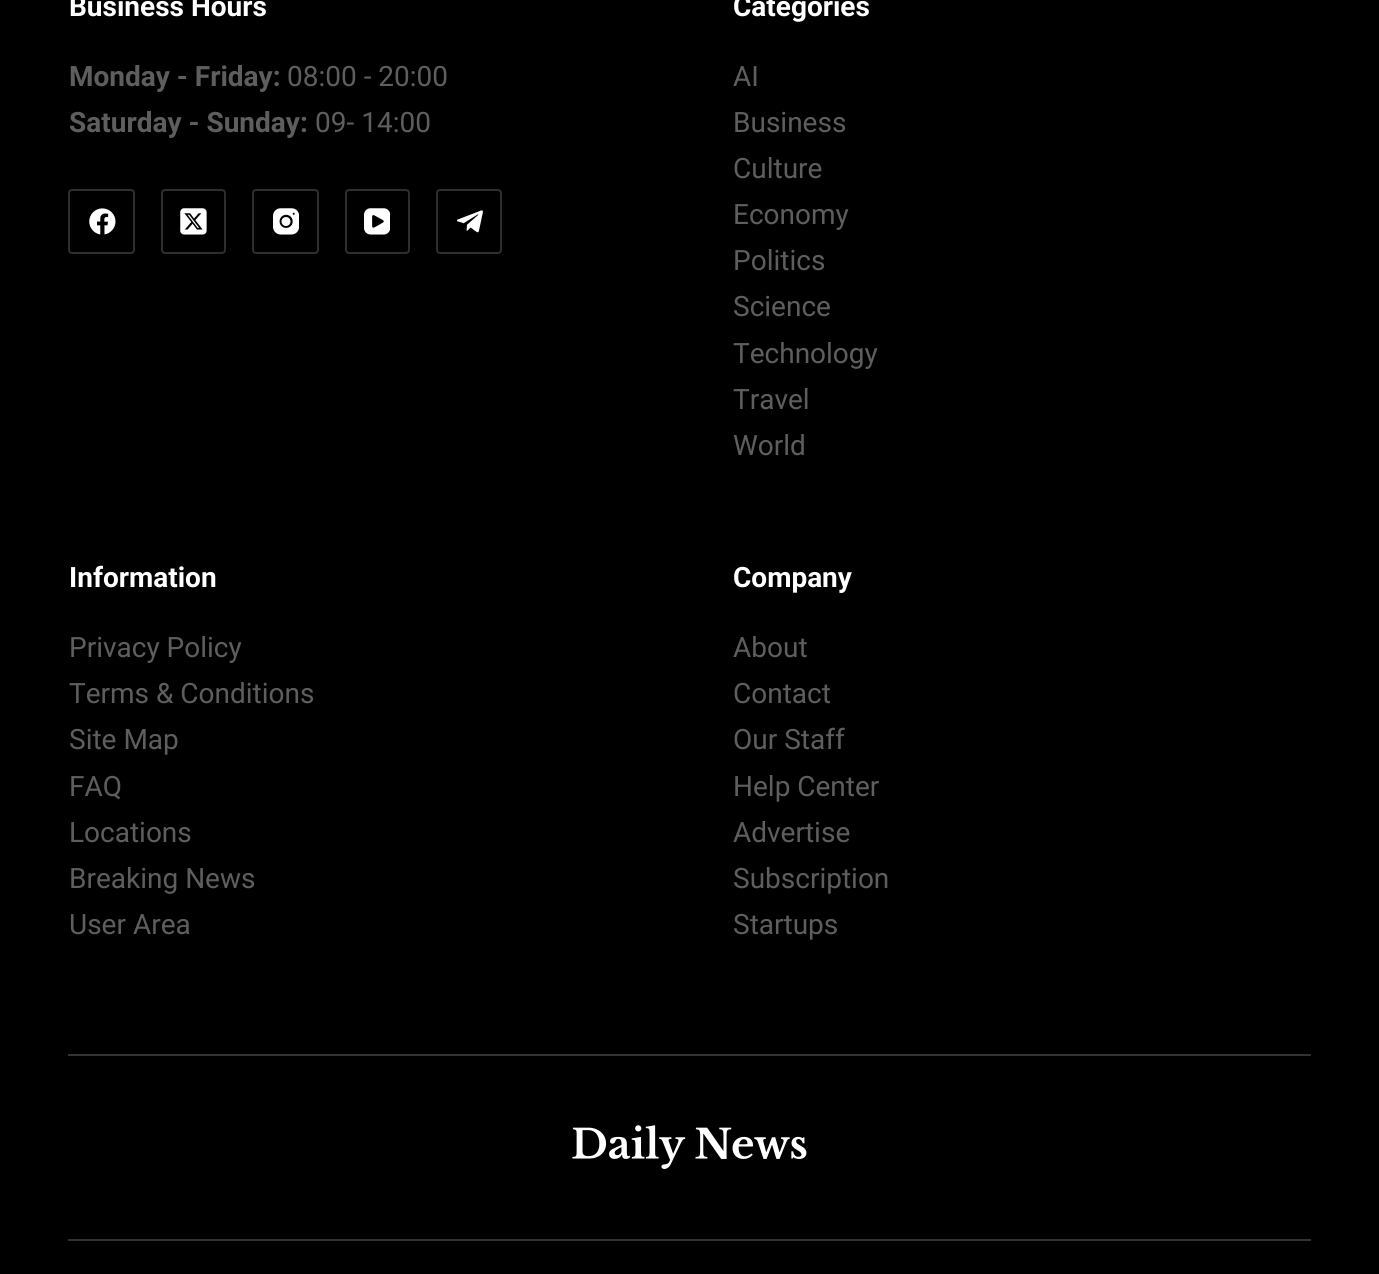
import math
import cairo

surface = cairo.ImageSurface(cairo.FORMAT_RGB24, 1379, 1274)
ctx = cairo.Context(surface)
options = cairo.FontOptions()
options.set_hint_metrics(cairo.HINT_METRICS_OFF)
options.set_hint_style(cairo.HINT_STYLE_NONE)
ctx.set_font_options(options)
ctx.set_miter_limit(4)


def round_rect(x, y, w, h, r):
    ctx.new_sub_path()
    for i, (u, v) in enumerate([(x + w - r, y + h - r), (x + r, y + h - r), (x + r, y + r), (x + w - r, y + r)]):
        ctx.arc(u, v, r, i * math.pi / 2, (i + 1) * math.pi / 2)
    ctx.close_path()


def picture(path, x, y, w, h):
    ctx.save()
    ctx.set_source_surface(cairo.ImageSurface.create_from_png(path), x, y)
    ctx.rectangle(x, y, w, h)
    ctx.fill()
    ctx.restore()


ctx.set_source_rgb(0, 0, 0)
ctx.paint()
ctx.set_source_rgb(0.2, 0.2, 0.2)
ctx.rectangle(68, 1054, 1243, 2)
ctx.fill()
ctx.select_font_face("Roboto", cairo.FONT_SLANT_NORMAL, cairo.FONT_WEIGHT_BOLD)
ctx.set_font_size(28)
ctx.set_source_rgb(1, 1, 1)
ctx.move_to(69, 16)
ctx.show_text("Business Hours")
ctx.set_source_rgb(0.369, 0.369, 0.369)
ctx.move_to(69, 86)
ctx.show_text("Monday - Friday:")
ctx.select_font_face("Roboto")
ctx.move_to(287, 86)
ctx.show_text("08:00 - 20:00")
ctx.select_font_face("Roboto", cairo.FONT_SLANT_NORMAL, cairo.FONT_WEIGHT_BOLD)
ctx.move_to(69, 132)
ctx.show_text("Saturday - Sunday:")
ctx.select_font_face("Roboto")
ctx.move_to(315, 132)
ctx.show_text("09- 14:00")
round_rect(69, 190, 65, 63, 3)
ctx.set_source_rgb(0.18, 0.18, 0.18)
ctx.stroke()
picture("img1.png", 89, 208, 27, 27)
round_rect(162, 190, 63, 63, 3)
ctx.stroke()
picture("img2.png", 180, 208, 27, 27)
round_rect(253, 190, 65, 63, 3)
ctx.stroke()
picture("img3.png", 273, 208, 26, 27)
round_rect(346, 190, 63, 63, 3)
ctx.stroke()
picture("img4.png", 364, 208, 26, 27)
round_rect(437, 190, 64, 63, 3)
ctx.stroke()
picture("img5.png", 457, 210, 26, 23)
ctx.select_font_face("Roboto", cairo.FONT_SLANT_NORMAL, cairo.FONT_WEIGHT_BOLD)
ctx.set_source_rgb(1, 1, 1)
ctx.move_to(733, 16)
ctx.show_text("Categories")
ctx.select_font_face("Roboto")
ctx.set_source_rgb(0.369, 0.369, 0.369)
ctx.move_to(733, 86)
ctx.show_text("AI")
ctx.move_to(733, 132)
ctx.show_text("Business")
ctx.move_to(733, 178)
ctx.show_text("Culture")
ctx.move_to(733, 224)
ctx.show_text("Economy")
ctx.move_to(733, 270)
ctx.show_text("Politics")
ctx.move_to(733, 316)
ctx.show_text("Science")
ctx.move_to(733, 363)
ctx.show_text("Technology")
ctx.move_to(733, 409)
ctx.show_text("Travel")
ctx.move_to(733, 455)
ctx.show_text("World")
ctx.select_font_face("Roboto", cairo.FONT_SLANT_NORMAL, cairo.FONT_WEIGHT_BOLD)
ctx.set_source_rgb(1, 1, 1)
ctx.move_to(69, 587)
ctx.show_text("Information")
ctx.select_font_face("Roboto")
ctx.set_source_rgb(0.369, 0.369, 0.369)
ctx.move_to(69, 657)
ctx.show_text("Privacy Policy")
ctx.move_to(69, 703)
ctx.show_text("Terms & Conditions")
ctx.move_to(69, 749)
ctx.show_text("Site Map")
ctx.move_to(69, 796)
ctx.show_text("FAQ")
ctx.move_to(69, 842)
ctx.show_text("Locations")
ctx.move_to(69, 888)
ctx.show_text("Breaking News")
ctx.move_to(69, 934)
ctx.show_text("User Area")
ctx.select_font_face("Roboto", cairo.FONT_SLANT_NORMAL, cairo.FONT_WEIGHT_BOLD)
ctx.set_source_rgb(1, 1, 1)
ctx.move_to(733, 587)
ctx.show_text("Company")
ctx.select_font_face("Roboto")
ctx.set_source_rgb(0.369, 0.369, 0.369)
ctx.move_to(733, 657)
ctx.show_text("About")
ctx.move_to(733, 703)
ctx.show_text("Contact")
ctx.move_to(733, 749)
ctx.show_text("Our Staff")
ctx.move_to(733, 796)
ctx.show_text("Help Center")
ctx.move_to(733, 842)
ctx.show_text("Advertise")
ctx.move_to(733, 888)
ctx.show_text("Subscription")
ctx.move_to(733, 934)
ctx.show_text("Startups")
picture("img6.png", 572, 1125, 235, 44)
ctx.set_source_rgb(0.2, 0.2, 0.2)
ctx.rectangle(68, 1239, 1243, 2)
ctx.fill()
surface.write_to_png("page.png")
